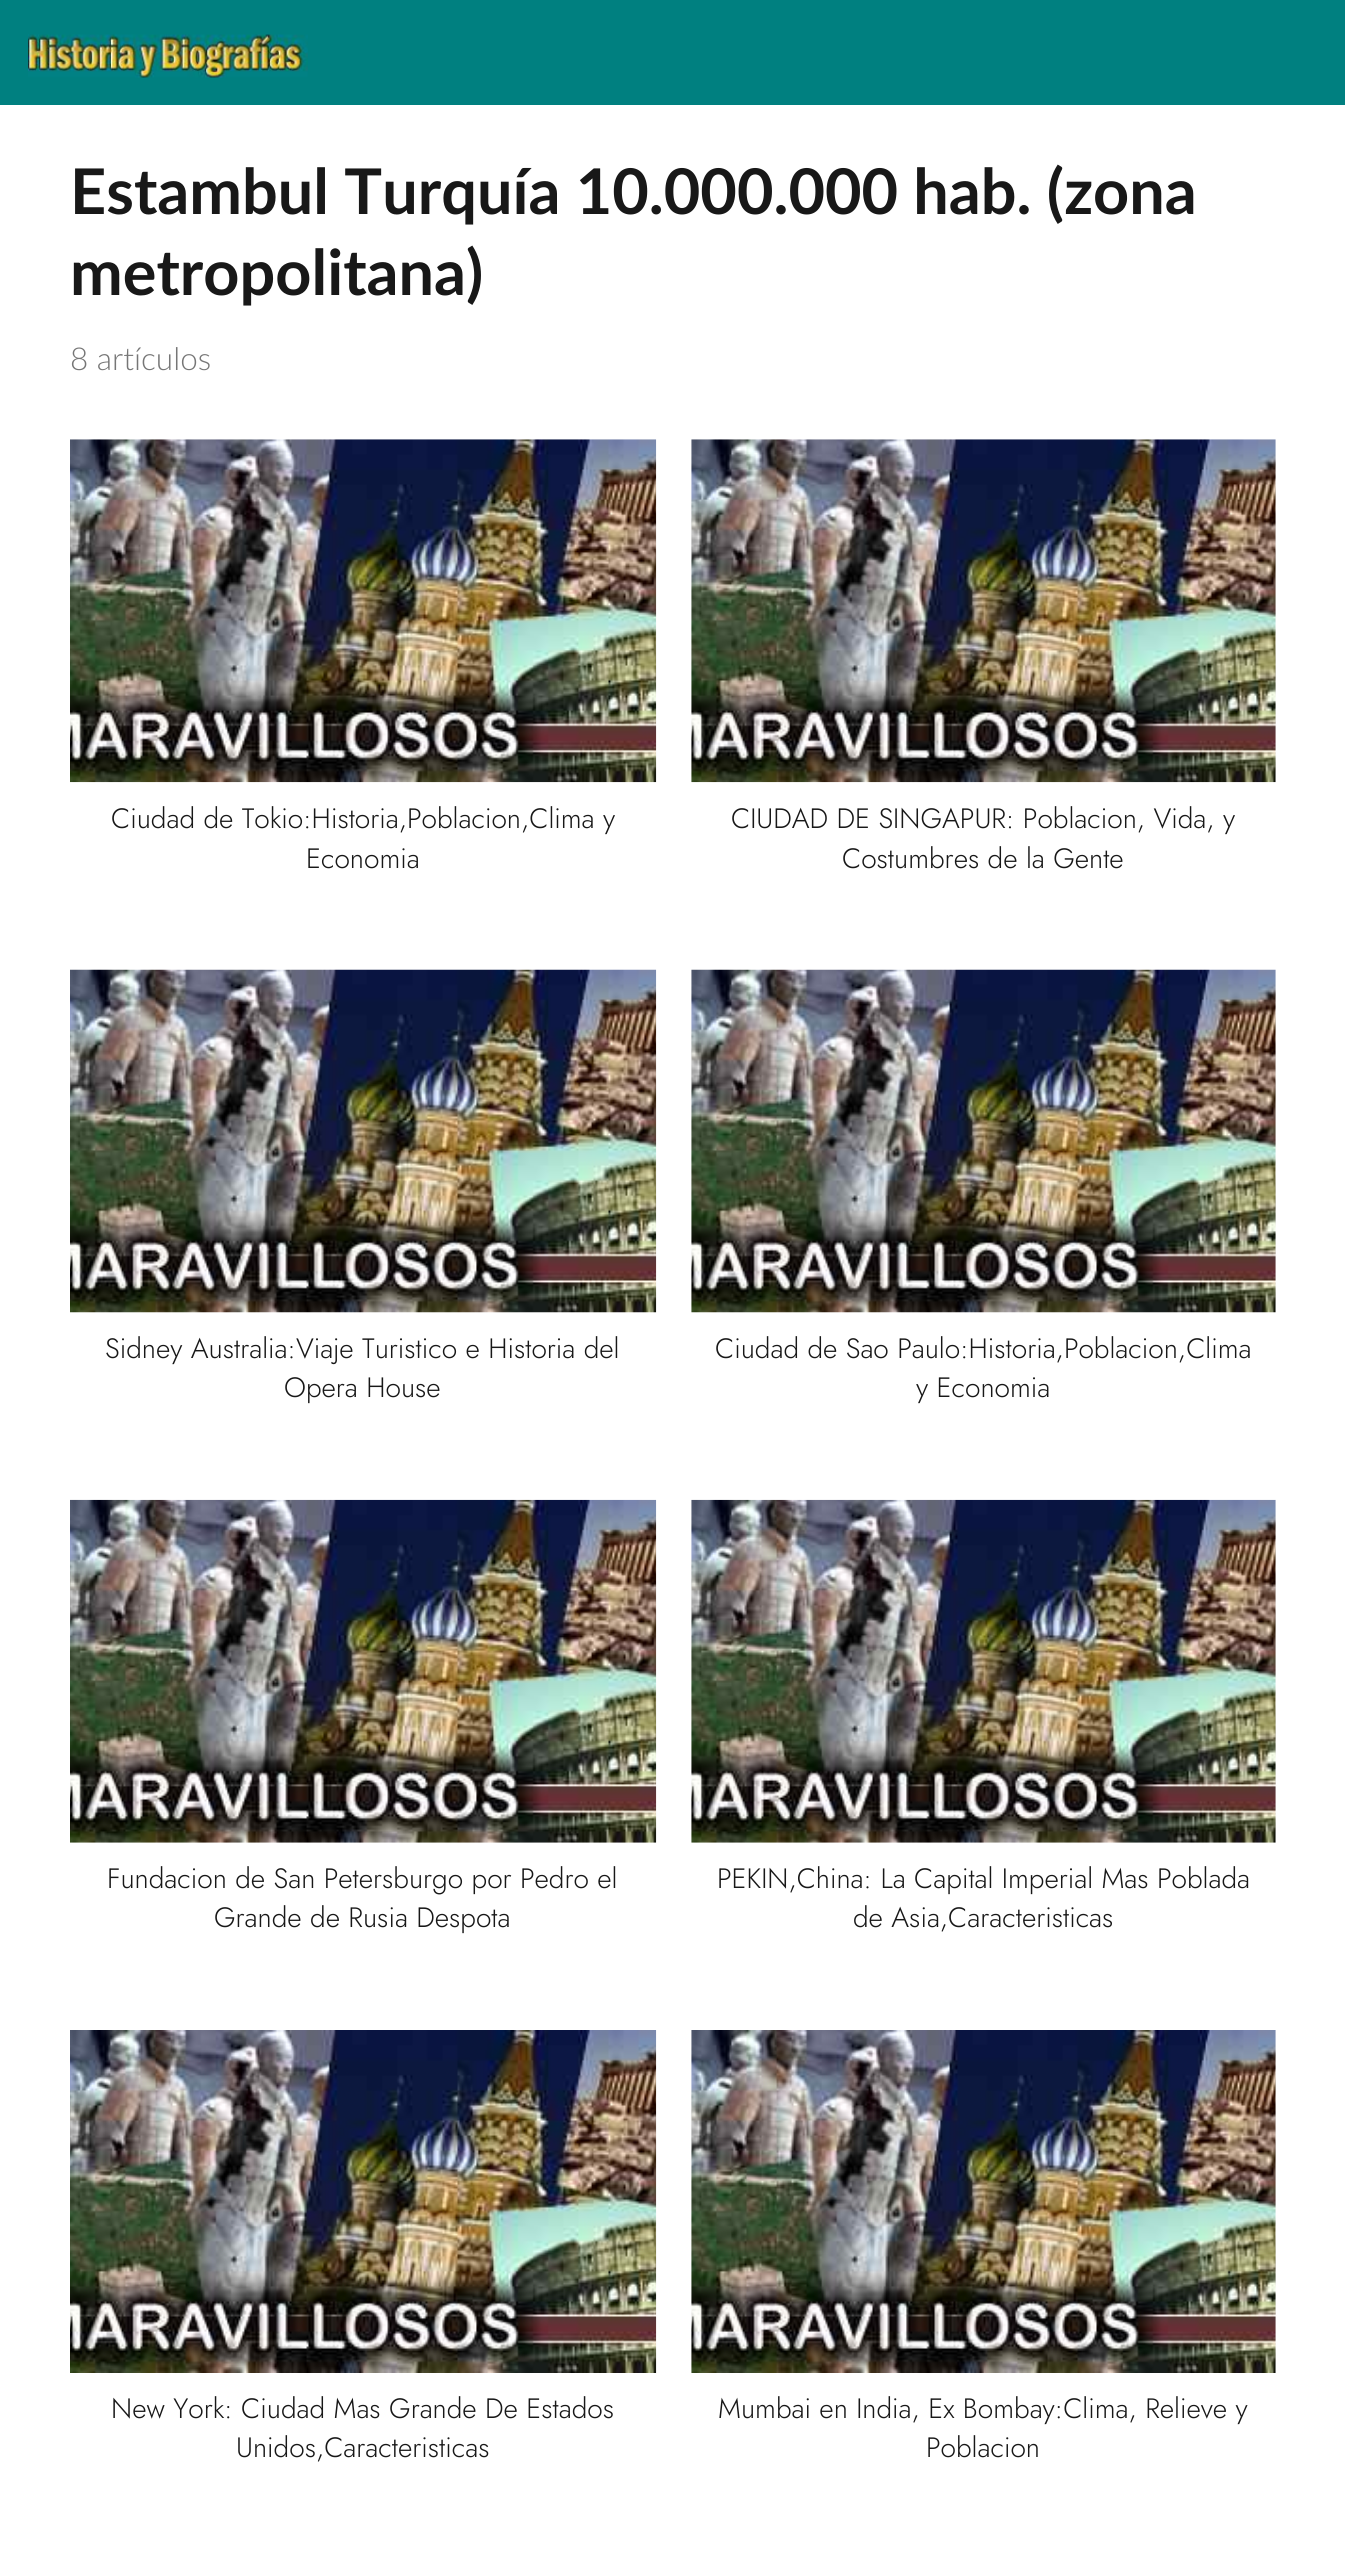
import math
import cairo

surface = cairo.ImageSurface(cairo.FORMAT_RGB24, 1345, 2567)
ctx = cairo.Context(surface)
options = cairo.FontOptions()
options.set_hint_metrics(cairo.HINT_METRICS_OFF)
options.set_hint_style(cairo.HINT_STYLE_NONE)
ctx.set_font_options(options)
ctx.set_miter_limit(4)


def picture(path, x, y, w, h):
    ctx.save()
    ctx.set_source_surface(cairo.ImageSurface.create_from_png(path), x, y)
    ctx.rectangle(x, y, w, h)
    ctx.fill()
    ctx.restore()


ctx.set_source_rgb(1, 1, 1)
ctx.paint()
ctx.set_source_rgb(0, 0.502, 0.502)
ctx.rectangle(0, 0, 1345, 105)
ctx.fill()
picture("img1.png", 28, 34, 280, 44)
ctx.select_font_face("Lato", cairo.FONT_SLANT_NORMAL, cairo.FONT_WEIGHT_BOLD)
ctx.set_font_size(63)
ctx.set_source_rgb(0.094, 0.094, 0.094)
ctx.move_to(70, 214)
ctx.show_text("Estambul Turquía 10.000.000 hab. (zona")
ctx.move_to(70, 295)
ctx.show_text("metropolitana)")
ctx.select_font_face("Lato Light")
ctx.set_font_size(31.5)
ctx.set_source_rgb(0.463, 0.463, 0.463)
ctx.move_to(70, 370)
ctx.show_text("8 artículos")
picture("img2.png", 70, 439, 587, 344)
ctx.select_font_face("Jost Light")
ctx.set_font_size(28)
ctx.set_source_rgb(0.094, 0.094, 0.094)
ctx.move_to(111, 828)
ctx.show_text("Ciudad de Tokio:Historia,Poblacion,Clima y")
ctx.move_to(306, 868)
ctx.show_text("Economia")
picture("img3.png", 691, 439, 585, 344)
ctx.move_to(731, 828)
ctx.show_text("CIUDAD DE SINGAPUR: Poblacion, Vida, y")
ctx.move_to(842, 868)
ctx.show_text("Costumbres de la Gente")
picture("img4.png", 70, 969, 587, 344)
ctx.move_to(105, 1358)
ctx.show_text("Sidney Australia:Viaje Turistico e Historia del")
ctx.move_to(284, 1397)
ctx.show_text("Opera House")
picture("img5.png", 691, 969, 585, 344)
ctx.move_to(715, 1358)
ctx.show_text("Ciudad de Sao Paulo:Historia,Poblacion,Clima")
ctx.move_to(916, 1397)
ctx.show_text("y Economia")
picture("img6.png", 70, 1499, 587, 344)
ctx.move_to(107, 1888)
ctx.show_text("Fundacion de San Petersburgo por Pedro el")
ctx.move_to(214, 1927)
ctx.show_text("Grande de Rusia Despota")
picture("img7.png", 691, 1499, 585, 344)
ctx.move_to(717, 1888)
ctx.show_text("PEKIN,China: La Capital Imperial Mas Poblada")
ctx.move_to(853, 1927)
ctx.show_text("de Asia,Caracteristicas")
picture("img8.png", 70, 2030, 587, 343)
ctx.move_to(111, 2418)
ctx.show_text("New York: Ciudad Mas Grande De Estados")
ctx.move_to(236, 2457)
ctx.show_text("Unidos,Caracteristicas")
picture("img9.png", 691, 2030, 585, 343)
ctx.move_to(718, 2418)
ctx.show_text("Mumbai en India, Ex Bombay:Clima, Relieve y")
ctx.move_to(926, 2457)
ctx.show_text("Poblacion")
surface.write_to_png("page.png")
